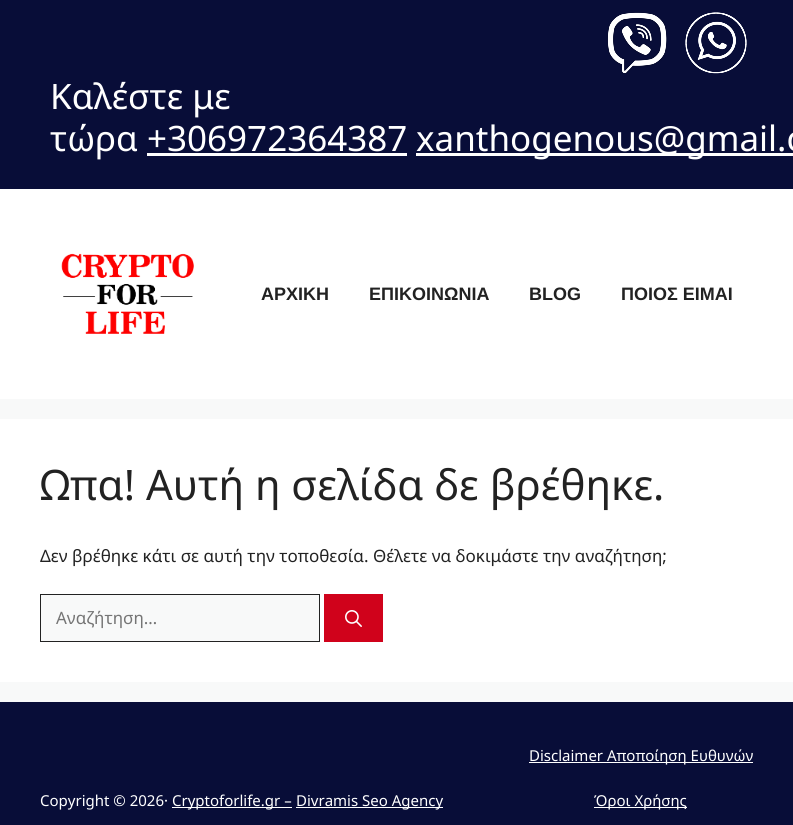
import math
import cairo

surface = cairo.ImageSurface(cairo.FORMAT_RGB24, 793, 825)
ctx = cairo.Context(surface)
options = cairo.FontOptions()
options.set_hint_metrics(cairo.HINT_METRICS_OFF)
options.set_hint_style(cairo.HINT_STYLE_NONE)
ctx.set_font_options(options)
ctx.set_miter_limit(4)


def picture(path, x, y, w, h):
    ctx.save()
    ctx.set_source_surface(cairo.ImageSurface.create_from_png(path), x, y)
    ctx.rectangle(x, y, w, h)
    ctx.fill()
    ctx.restore()


ctx.set_source_rgb(0.969, 0.973, 0.976)
ctx.paint()
ctx.set_source_rgb(0.035, 0.051, 0.22)
ctx.rectangle(0, 0, 793, 189)
ctx.fill()
picture("img1.png", 607, 12, 60, 62)
picture("img2.png", 685, 12, 62, 62)
ctx.select_font_face("Noto Sans")
ctx.set_font_size(35)
ctx.set_source_rgb(1, 1, 1)
ctx.move_to(50, 109)
ctx.show_text("Καλέστε με")
ctx.move_to(50, 151)
ctx.show_text("τώρα +306972364387")
ctx.rectangle(416, 153, 377, 3)
ctx.fill()
ctx.move_to(416, 151)
ctx.show_text("xanthogenous@gmail.c")
ctx.rectangle(147, 153, 260, 3)
ctx.fill()
ctx.rectangle(0, 189, 793, 210)
ctx.fill()
picture("img3.png", 61, 253, 133, 81)
ctx.select_font_face("Liberation Sans", cairo.FONT_SLANT_NORMAL, cairo.FONT_WEIGHT_BOLD)
ctx.set_font_size(18)
ctx.set_source_rgb(0.133, 0.133, 0.133)
ctx.move_to(261, 300)
ctx.show_text("ΑΡΧΙΚΗ")
ctx.move_to(369, 300)
ctx.show_text("ΕΠΙΚΟΙΝΩΝΙΑ")
ctx.move_to(529, 300)
ctx.show_text("BLOG")
ctx.move_to(621, 300)
ctx.show_text("ΠΟΙΟΣ ΕΙΜΑΙ")
ctx.set_source_rgb(1, 1, 1)
ctx.rectangle(0, 419, 793, 263)
ctx.fill()
ctx.select_font_face("Noto Sans")
ctx.set_font_size(42)
ctx.set_source_rgb(0.133, 0.133, 0.133)
ctx.move_to(40, 500)
ctx.show_text("Ωπα! Αυτή η σελίδα δε βρέθηκε.")
ctx.set_font_size(17)
ctx.move_to(40, 562)
ctx.show_text("Δεν βρέθηκε κάτι σε αυτή την τοποθεσία. Θέλετε να δοκιμάστε την αναζήτηση;")
ctx.set_source_rgb(0.969, 0.973, 0.976)
ctx.rectangle(40.5, 594.5, 279, 47)
ctx.fill_preserve()
ctx.set_source_rgb(0.133, 0.133, 0.133)
ctx.set_line_width(1)
ctx.stroke()
ctx.set_source_rgb(0.459, 0.459, 0.459)
ctx.move_to(56, 624)
ctx.show_text("Αναζήτηση…")
ctx.set_source_rgb(0.816, 0.008, 0.106)
ctx.rectangle(324, 594, 59, 48)
ctx.fill()
picture("img4.png", 345, 610, 17, 17)
ctx.set_source_rgb(0.035, 0.051, 0.22)
ctx.rectangle(0, 702, 793, 123)
ctx.fill()
ctx.set_font_size(15)
ctx.set_source_rgb(1, 1, 1)
ctx.move_to(40, 806)
ctx.show_text("Copyright © 2026·")
ctx.rectangle(172, 807, 120, 1)
ctx.fill()
ctx.move_to(172, 806)
ctx.show_text("Cryptoforlife.gr –")
ctx.rectangle(296, 807, 147, 1)
ctx.fill()
ctx.move_to(296, 806)
ctx.show_text("Divramis Seo Agency")
ctx.rectangle(529, 762, 224, 1)
ctx.fill()
ctx.move_to(529, 761)
ctx.show_text("Disclaimer Αποποίηση Ευθυνών")
ctx.rectangle(594, 807, 93, 1)
ctx.fill()
ctx.move_to(594, 806)
ctx.show_text("Όροι Χρήσης")
surface.write_to_png("page.png")
